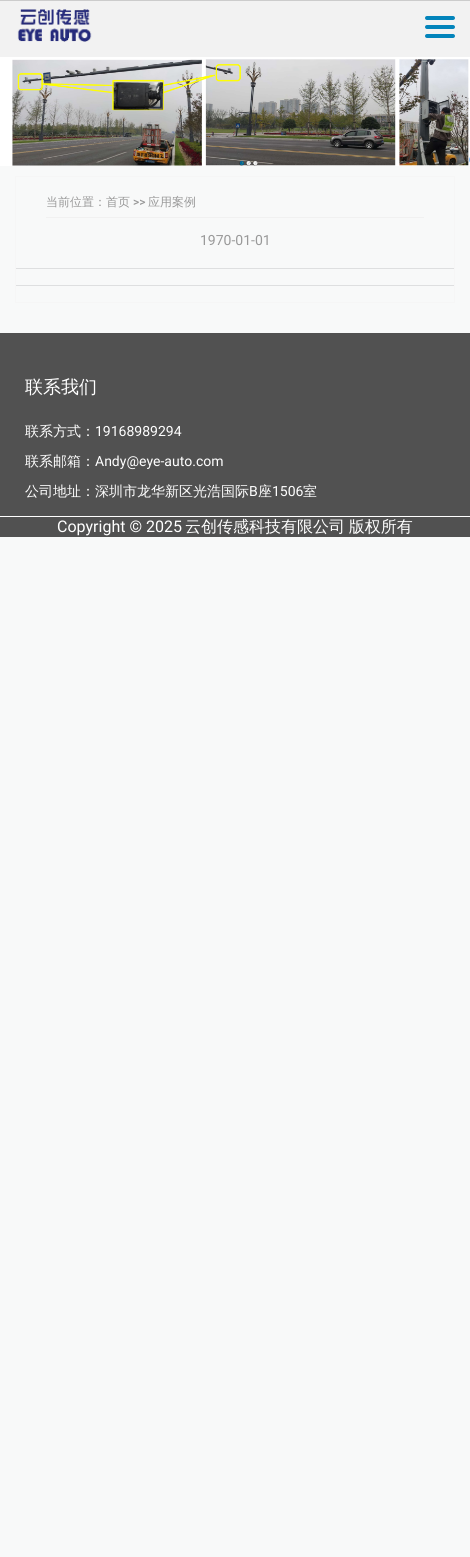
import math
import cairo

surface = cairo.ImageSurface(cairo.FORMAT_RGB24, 470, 1557)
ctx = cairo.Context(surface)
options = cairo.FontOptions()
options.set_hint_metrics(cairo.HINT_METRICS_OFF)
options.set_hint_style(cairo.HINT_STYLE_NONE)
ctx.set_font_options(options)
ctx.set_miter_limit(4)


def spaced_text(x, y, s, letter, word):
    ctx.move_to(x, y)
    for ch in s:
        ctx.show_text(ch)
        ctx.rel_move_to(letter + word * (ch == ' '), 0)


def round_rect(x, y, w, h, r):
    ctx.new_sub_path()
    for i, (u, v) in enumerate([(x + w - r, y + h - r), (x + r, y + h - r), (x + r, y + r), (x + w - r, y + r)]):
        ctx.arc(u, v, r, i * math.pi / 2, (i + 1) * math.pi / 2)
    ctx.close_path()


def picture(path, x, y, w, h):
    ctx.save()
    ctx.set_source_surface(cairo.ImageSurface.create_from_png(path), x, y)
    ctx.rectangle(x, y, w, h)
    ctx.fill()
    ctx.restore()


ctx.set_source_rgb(0.969, 0.973, 0.976)
ctx.paint()
ctx.set_source_rgb(0.949, 0.949, 0.949)
ctx.rectangle(0, 1, 470, 56)
ctx.fill()
ctx.set_source_rgb(0.8, 0.8, 0.8)
ctx.rectangle(0, 0, 470, 1)
ctx.fill()
ctx.set_source_rgb(0.012, 0.518, 0.733)
round_rect(425, 16, 30, 4, 2)
ctx.fill()
round_rect(425, 25, 30, 4, 2)
ctx.fill()
round_rect(425, 34, 30, 4, 2)
ctx.fill()
picture("img1.png", 17, 9, 75, 33)
picture("img2.png", 0, 57, 470, 109)
ctx.rectangle(15.5, 176.5, 439, 126)
ctx.set_source_rgb(0.961, 0.961, 0.961)
ctx.set_line_width(1)
ctx.stroke()
ctx.set_source_rgb(0.945, 0.945, 0.945)
ctx.rectangle(46, 217, 378, 1)
ctx.fill()
ctx.select_font_face("WenQuanYi Zen Hei Medium")
ctx.set_font_size(12)
ctx.set_source_rgb(0.6, 0.6, 0.6)
ctx.move_to(46, 206)
ctx.show_text("当前位置：首页")
ctx.select_font_face("Roboto Medium")
ctx.move_to(133, 206)
ctx.show_text(">>")
ctx.select_font_face("WenQuanYi Zen Hei Medium")
ctx.move_to(148, 206)
ctx.show_text("应用案例")
ctx.select_font_face("Roboto")
ctx.set_font_size(14)
ctx.move_to(200, 245)
ctx.show_text("1970-01-01")
ctx.set_source_rgb(0.871, 0.875, 0.878)
ctx.rectangle(16, 268, 438, 1)
ctx.fill()
ctx.rectangle(16, 285, 438, 1)
ctx.fill()
ctx.set_source_rgb(0.318, 0.318, 0.318)
ctx.rectangle(0, 333, 470, 183)
ctx.fill()
ctx.select_font_face("WenQuanYi Zen Hei Medium")
ctx.set_font_size(18)
ctx.set_source_rgb(1, 1, 1)
ctx.move_to(25, 393)
ctx.show_text("联系我们")
ctx.set_font_size(14)
ctx.move_to(25, 436)
ctx.show_text("联系方式：")
ctx.select_font_face("Roboto")
ctx.move_to(95, 436)
ctx.show_text("19168989294")
ctx.select_font_face("WenQuanYi Zen Hei Medium")
ctx.move_to(25, 466)
ctx.show_text("联系邮箱：")
ctx.select_font_face("Roboto")
ctx.move_to(95, 466)
ctx.show_text("Andy@eye-auto.com")
ctx.select_font_face("WenQuanYi Zen Hei Medium")
ctx.move_to(25, 496)
ctx.show_text("公司地址：深圳市龙华新区光浩国际")
ctx.select_font_face("Roboto")
ctx.move_to(249, 496)
ctx.show_text("B")
ctx.select_font_face("WenQuanYi Zen Hei Medium")
ctx.move_to(258, 496)
ctx.show_text("座")
ctx.select_font_face("Roboto")
ctx.move_to(272, 496)
ctx.show_text("1506")
ctx.select_font_face("WenQuanYi Zen Hei Medium")
ctx.move_to(303, 496)
ctx.show_text("室")
ctx.set_source_rgb(0.318, 0.318, 0.318)
ctx.rectangle(0, 517, 470, 20)
ctx.fill()
ctx.set_source_rgb(1, 1, 1)
ctx.rectangle(0, 516, 470, 1)
ctx.fill()
ctx.select_font_face("Roboto")
ctx.set_font_size(16)
ctx.move_to(57, 532)
ctx.show_text("Copyright © 2025")
ctx.select_font_face("WenQuanYi Zen Hei Medium")
spaced_text(185, 532, "云创传感科技有限公司 版权所有", 0, -1)
surface.write_to_png("page.png")
